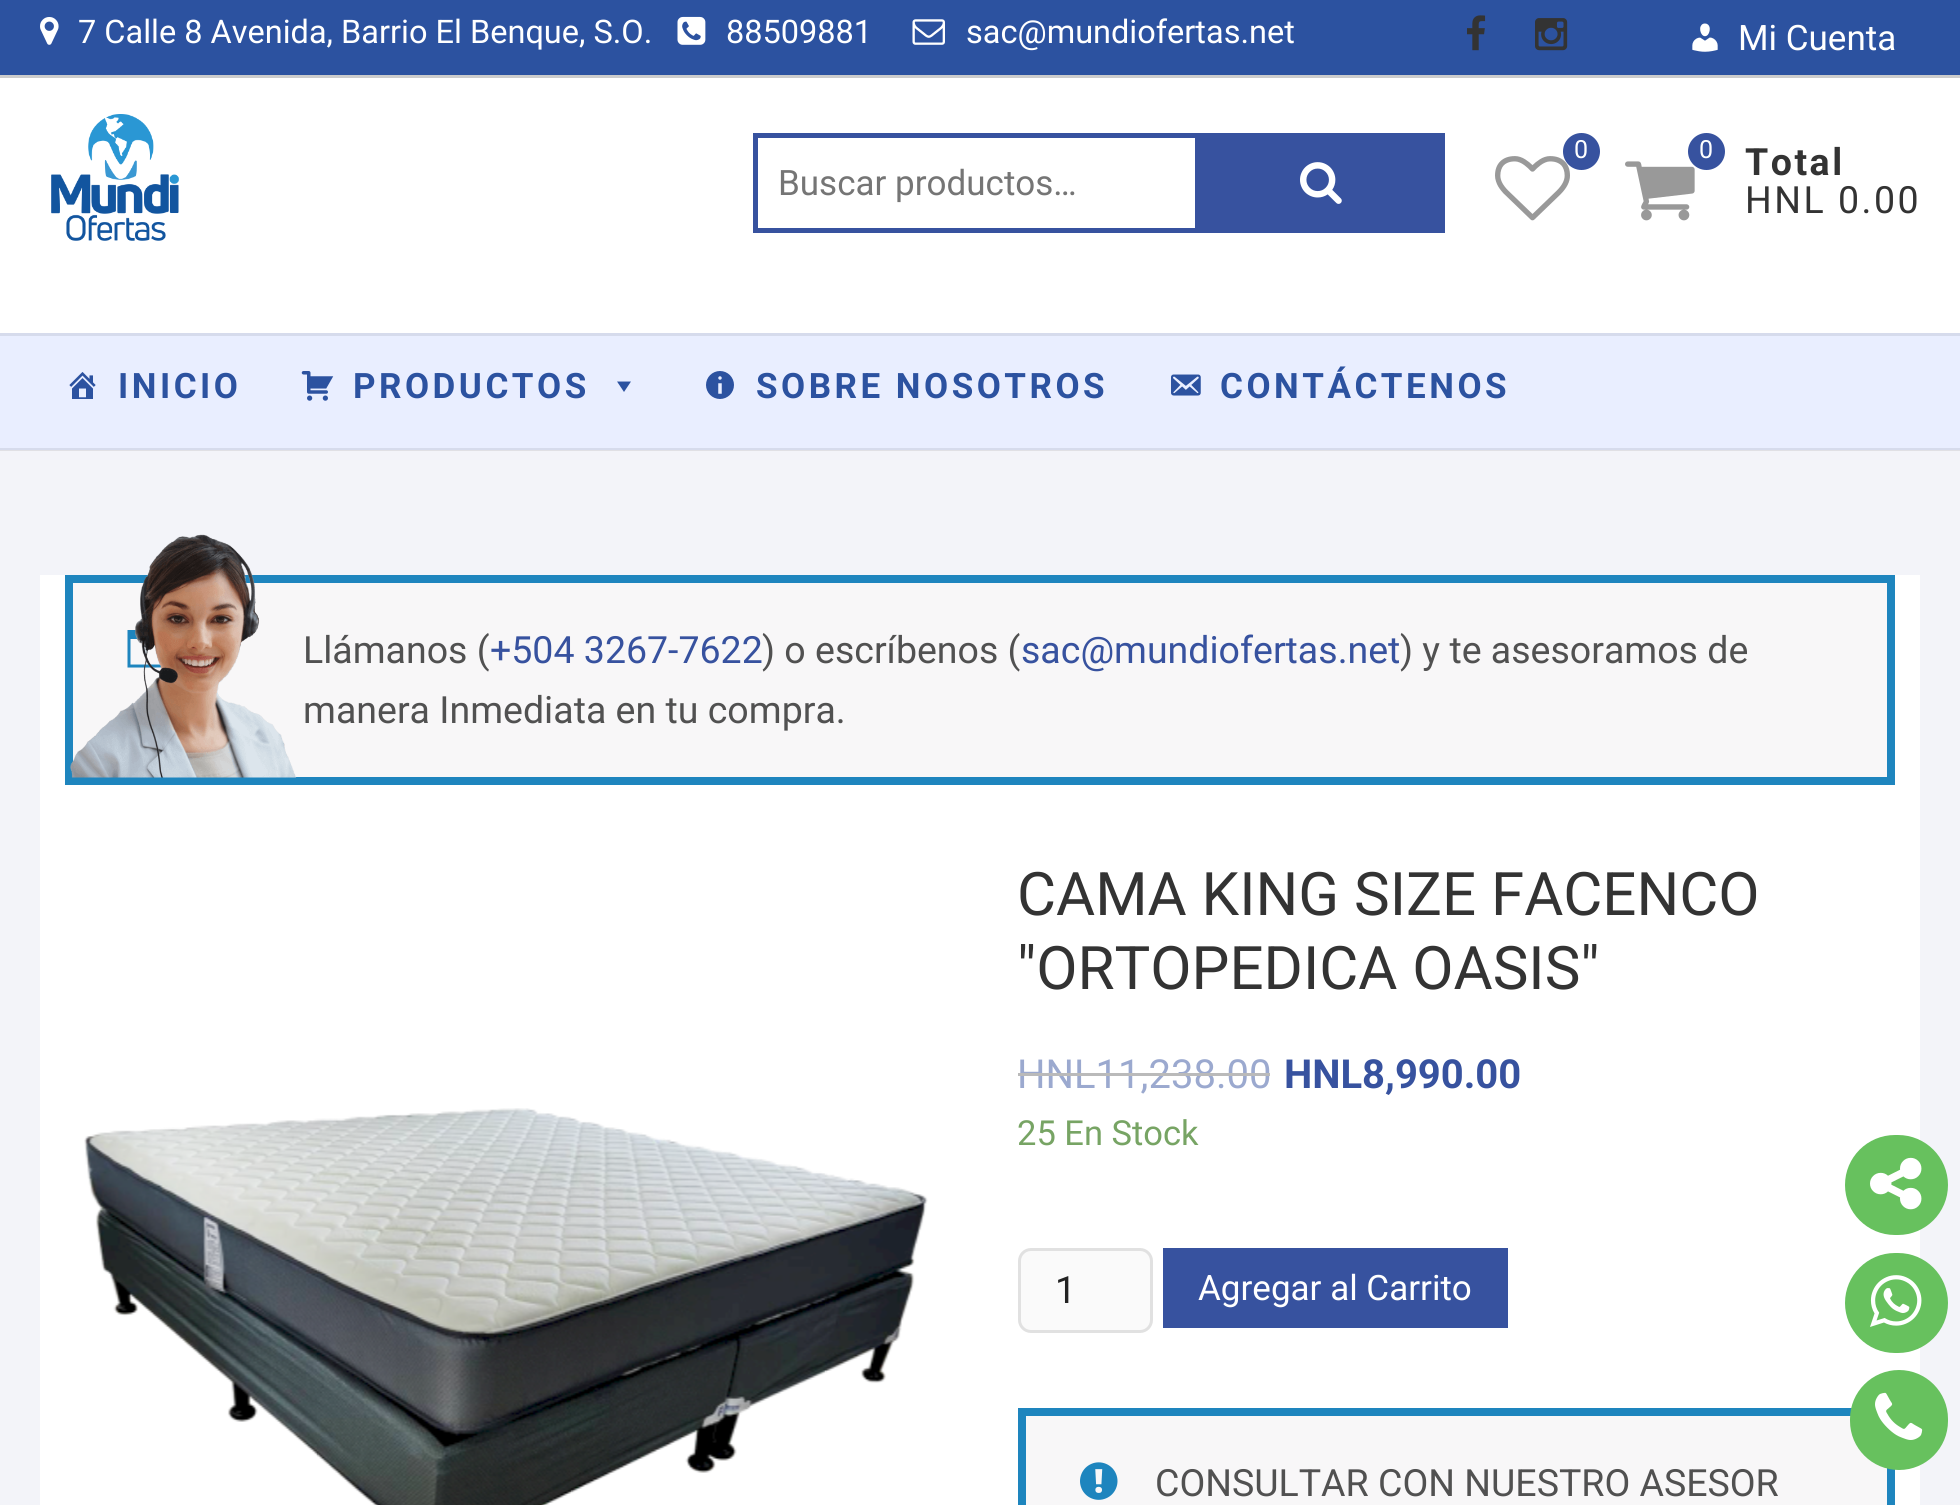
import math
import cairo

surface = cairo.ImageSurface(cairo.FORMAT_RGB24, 1960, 1505)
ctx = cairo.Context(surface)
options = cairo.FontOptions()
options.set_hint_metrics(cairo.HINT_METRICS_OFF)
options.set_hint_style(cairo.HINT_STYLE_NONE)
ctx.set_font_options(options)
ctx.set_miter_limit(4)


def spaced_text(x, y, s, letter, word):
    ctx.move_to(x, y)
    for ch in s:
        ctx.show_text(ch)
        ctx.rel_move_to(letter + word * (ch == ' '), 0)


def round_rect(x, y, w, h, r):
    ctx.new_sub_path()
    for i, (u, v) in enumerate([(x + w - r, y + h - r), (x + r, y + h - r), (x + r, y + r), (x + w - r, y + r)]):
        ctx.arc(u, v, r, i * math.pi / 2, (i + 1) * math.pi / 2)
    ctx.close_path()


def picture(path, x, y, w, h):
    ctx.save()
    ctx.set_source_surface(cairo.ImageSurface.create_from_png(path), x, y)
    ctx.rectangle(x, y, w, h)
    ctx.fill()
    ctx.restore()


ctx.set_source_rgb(0.953, 0.957, 0.973)
ctx.paint()
ctx.set_source_rgb(0.878, 0.878, 0.894)
ctx.rectangle(0, 450, 1960, 1)
ctx.fill()
ctx.set_source_rgb(1, 1, 1)
ctx.rectangle(0, 78, 1960, 255)
ctx.fill()
ctx.set_source_rgb(0.173, 0.322, 0.627)
ctx.rectangle(0, 0, 1960, 75)
ctx.fill()
ctx.set_source_rgb(0.8, 0.8, 0.8)
ctx.rectangle(0, 75, 1960, 3)
ctx.fill()
picture("img1.png", 40, 17, 19, 28)
ctx.select_font_face("Roboto")
ctx.set_font_size(32.5)
ctx.set_source_rgb(1, 1, 1)
ctx.move_to(78, 43)
ctx.show_text("7 Calle 8 Avenida, Barrio El Benque, S.O.")
picture("img2.png", 677, 16, 29, 29)
ctx.move_to(726, 43)
ctx.show_text("88509881")
picture("img3.png", 912, 19, 33, 26)
ctx.move_to(966, 43)
ctx.show_text("sac@mundiofertas.net")
picture("img4.png", 1467, 15, 19, 36)
picture("img5.png", 1535, 18, 33, 33)
picture("img6.png", 1692, 23, 26, 29)
ctx.set_font_size(35)
ctx.move_to(1738, 50)
ctx.show_text("Mi Cuenta")
picture("img7.png", 51, 114, 128, 127)
ctx.set_source_rgb(0.216, 0.322, 0.624)
ctx.rectangle(753, 133, 442, 5)
ctx.fill()
ctx.rectangle(753, 228, 442, 5)
ctx.fill()
ctx.rectangle(753, 133, 5, 100)
ctx.fill()
ctx.set_source_rgb(0.459, 0.459, 0.459)
ctx.move_to(778, 195)
ctx.show_text("Buscar productos…")
ctx.set_source_rgb(0.216, 0.322, 0.624)
ctx.rectangle(1195, 133, 250, 100)
ctx.fill()
picture("img8.png", 1300, 162, 42, 42)
picture("img9.png", 1495, 156, 75, 65)
ctx.arc(1581.5, 151.5, 18.5, 0, 2 * math.pi)
ctx.fill()
ctx.set_font_size(25)
ctx.set_source_rgb(1, 1, 1)
ctx.move_to(1574, 158)
ctx.show_text("0")
picture("img10.png", 1625, 161, 70, 60)
ctx.set_source_rgb(0.216, 0.322, 0.624)
ctx.arc(1706.5, 151.5, 18.5, 0, 2 * math.pi)
ctx.fill()
ctx.set_source_rgb(1, 1, 1)
ctx.move_to(1699, 158)
ctx.show_text("0")
ctx.select_font_face("Roboto", cairo.FONT_SLANT_NORMAL, cairo.FONT_WEIGHT_BOLD)
ctx.set_font_size(37.5)
ctx.set_source_rgb(0.2, 0.2, 0.2)
spaced_text(1745, 175, "Total", 2.5, 0)
ctx.select_font_face("Roboto")
spaced_text(1745, 213, "HNL 0.00", 2.5, 0)
ctx.set_source_rgb(0.914, 0.933, 1)
ctx.rectangle(0, 336, 1960, 112)
ctx.fill()
ctx.set_source_rgb(0.839, 0.859, 0.922)
ctx.rectangle(0, 448, 1960, 2)
ctx.fill()
ctx.rectangle(0, 333, 1960, 3)
ctx.fill()
picture("img11.png", 69, 372, 27, 27)
ctx.select_font_face("Roboto", cairo.FONT_SLANT_NORMAL, cairo.FONT_WEIGHT_BOLD)
ctx.set_font_size(35)
ctx.set_source_rgb(0.173, 0.322, 0.627)
spaced_text(118, 398, "INICIO", 3.5, 0)
picture("img12.png", 301, 371, 33, 30)
spaced_text(353, 398, "PRODUCTOS", 3.5, 0)
ctx.new_path()
ctx.move_to(631, 381.5)
ctx.line_to(624, 392)
ctx.line_to(617, 381.5)
ctx.close_path()
ctx.fill()
picture("img13.png", 706, 371, 28, 28)
spaced_text(756, 398, "SOBRE NOSOTROS", 3.5, 0)
picture("img14.png", 1171, 374, 30, 22)
spaced_text(1220, 398, "CONTÁCTENOS", 3.5, 0)
ctx.set_source_rgb(1, 1, 1)
ctx.rectangle(40, 575, 1880, 930)
ctx.fill()
ctx.set_source_rgb(0.969, 0.965, 0.969)
ctx.rectangle(69, 579, 1822, 202)
ctx.fill_preserve()
ctx.set_source_rgb(0.118, 0.522, 0.745)
ctx.set_line_width(8)
ctx.stroke()
ctx.new_path()
ctx.move_to(162, 639)
ctx.line_to(130.5, 639)
ctx.line_to(130.5, 664.5)
ctx.line_to(162, 664.5)
ctx.close_path()
ctx.move_to(165, 630)
ctx.line_to(165, 658.5)
ctx.curve_to(165, 668, 165.5, 667.5, 156.5, 667.5)
ctx.line_to(127.5, 667.5)
ctx.line_to(127.5, 630)
ctx.close_path()
ctx.fill()
picture("img15.png", 70, 534, 227, 244)
ctx.select_font_face("Roboto")
ctx.set_font_size(37.5)
ctx.set_source_rgb(0.318, 0.318, 0.318)
ctx.move_to(303, 663)
ctx.show_text("Llámanos (")
ctx.set_source_rgb(0.216, 0.322, 0.624)
ctx.move_to(490, 663)
ctx.show_text("+504 3267-7622")
ctx.set_source_rgb(0.318, 0.318, 0.318)
ctx.move_to(762, 663)
ctx.show_text(") o escríbenos (")
ctx.set_source_rgb(0.216, 0.322, 0.624)
ctx.move_to(1021, 663)
ctx.show_text("sac@mundiofertas.net")
ctx.set_source_rgb(0.318, 0.318, 0.318)
ctx.move_to(1400, 663)
ctx.show_text(") y te asesoramos de")
ctx.move_to(303, 723)
ctx.show_text("manera Inmediata en tu compra.")
picture("img16.png", 84, 1108, 844, 397)
ctx.set_font_size(60)
ctx.set_source_rgb(0.2, 0.2, 0.2)
ctx.move_to(1017, 915)
ctx.show_text("CAMA KING SIZE FACENCO")
ctx.move_to(1017, 989)
ctx.show_text("\"ORTOPEDICA OASIS\"")
ctx.set_font_size(40)
ctx.set_source_rgb(0.608, 0.663, 0.812)
ctx.move_to(1017, 1088)
ctx.show_text("HNL11,238.00")
ctx.set_source_rgb(0.729, 0.729, 0.729)
ctx.rectangle(1018, 1073, 252, 3)
ctx.fill()
ctx.select_font_face("Roboto", cairo.FONT_SLANT_NORMAL, cairo.FONT_WEIGHT_BOLD)
ctx.set_source_rgb(0.216, 0.322, 0.624)
ctx.move_to(1284, 1088)
ctx.show_text("HNL8,990.00")
ctx.select_font_face("Roboto")
ctx.set_font_size(34.5)
ctx.set_source_rgb(0.467, 0.643, 0.392)
ctx.move_to(1017, 1145)
ctx.show_text("25 En Stock")
ctx.set_source_rgb(0.98, 0.98, 0.98)
round_rect(1019.5, 1249.5, 132, 82, 11.5)
ctx.fill_preserve()
ctx.set_source_rgb(0.882, 0.882, 0.882)
ctx.set_line_width(3)
ctx.stroke()
ctx.set_font_size(37.5)
ctx.set_source_rgb(0.133, 0.133, 0.133)
ctx.move_to(1055, 1303)
ctx.show_text("1")
ctx.set_source_rgb(0.216, 0.322, 0.624)
ctx.rectangle(1163, 1248, 345, 80)
ctx.fill()
ctx.set_font_size(35)
ctx.set_source_rgb(1, 1, 1)
ctx.move_to(1198, 1300)
ctx.show_text("Agregar al Carrito")
ctx.set_source_rgb(0.969, 0.965, 0.969)
ctx.rectangle(1022, 1412, 869, 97)
ctx.fill_preserve()
ctx.set_source_rgb(0.118, 0.522, 0.745)
ctx.set_line_width(8)
ctx.stroke()
picture("img17.png", 1080, 1462, 38, 38)
ctx.set_font_size(37.5)
ctx.set_source_rgb(0.318, 0.318, 0.318)
ctx.move_to(1155, 1496)
ctx.show_text("CONSULTAR CON NUESTRO ASESOR")
ctx.set_source_rgb(0.404, 0.757, 0.369)
round_rect(1845, 1135, 103, 100, 50)
ctx.fill()
picture("img18.png", 1870, 1157, 52, 53)
round_rect(1845, 1253, 103, 100, 50)
ctx.fill()
picture("img19.png", 1870, 1275, 52, 52)
round_rect(1850, 1370, 98, 100, 49)
ctx.fill()
picture("img20.png", 1875, 1392, 48, 48)
surface.write_to_png("page.png")
